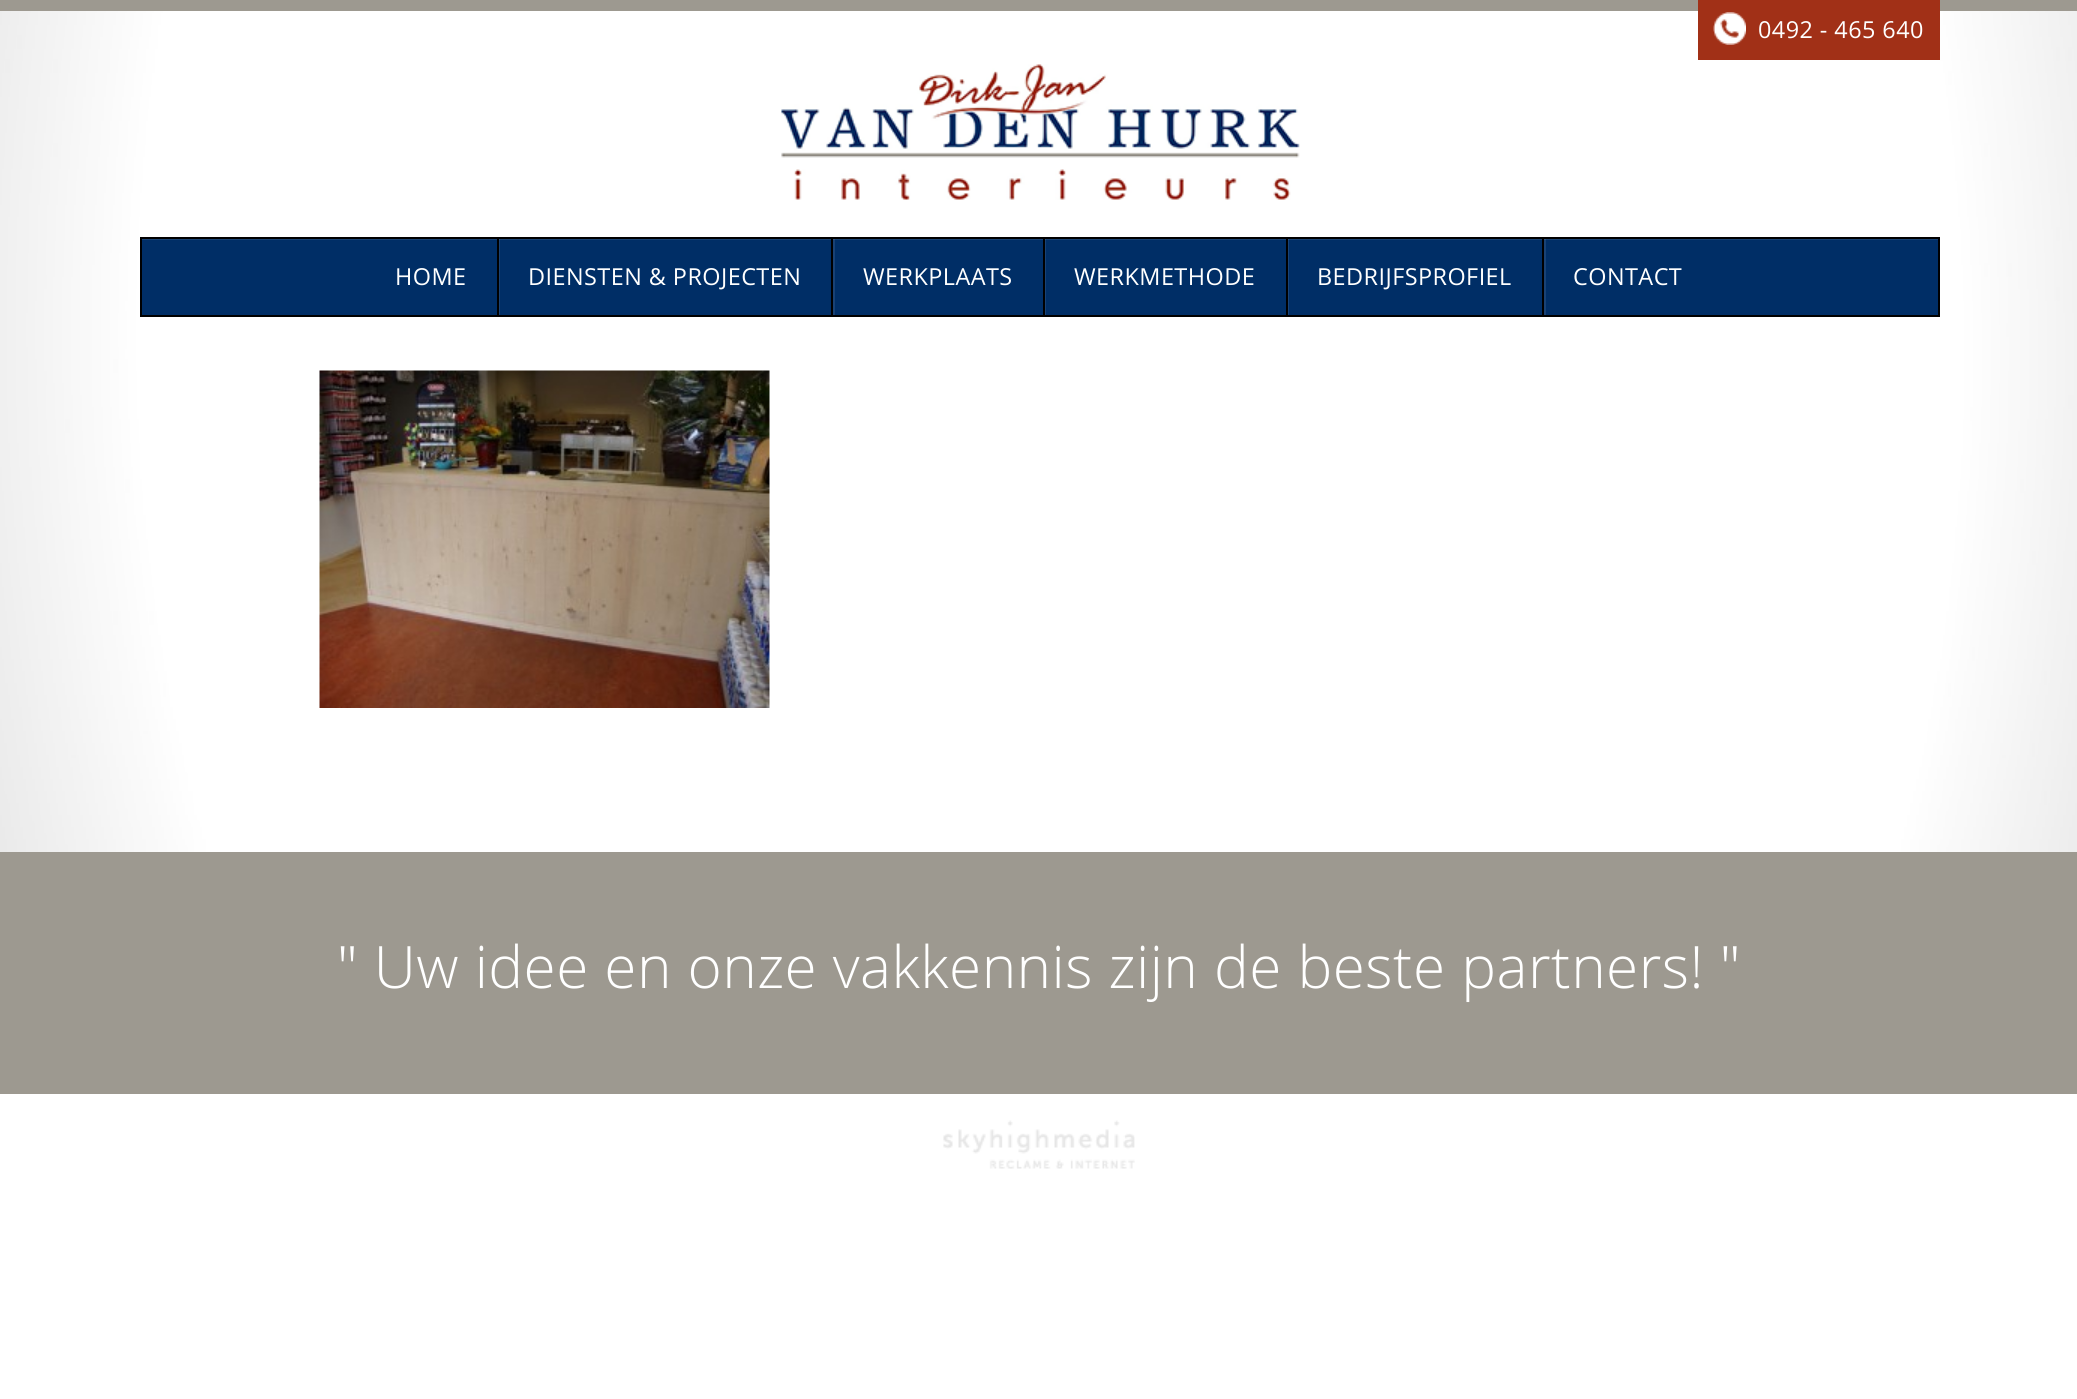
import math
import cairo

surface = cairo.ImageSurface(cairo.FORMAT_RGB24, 2077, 1399)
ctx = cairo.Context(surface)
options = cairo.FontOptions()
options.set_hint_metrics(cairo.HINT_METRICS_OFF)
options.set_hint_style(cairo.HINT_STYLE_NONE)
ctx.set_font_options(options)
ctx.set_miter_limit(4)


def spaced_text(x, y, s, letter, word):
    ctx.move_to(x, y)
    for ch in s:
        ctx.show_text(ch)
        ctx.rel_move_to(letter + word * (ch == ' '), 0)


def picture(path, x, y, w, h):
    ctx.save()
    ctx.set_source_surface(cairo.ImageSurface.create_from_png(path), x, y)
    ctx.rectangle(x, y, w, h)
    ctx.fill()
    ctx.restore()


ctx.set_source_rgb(1, 1, 1)
ctx.paint()
picture("img1.png", 0, 11, 2077, 841)
ctx.set_source_rgb(0.616, 0.6, 0.565)
ctx.rectangle(0, 0, 2077, 11)
ctx.fill()
ctx.set_source_rgb(0.631, 0.188, 0.09)
ctx.rectangle(1698, 0, 242, 60)
ctx.fill()
picture("img2.png", 1713, 12, 33, 33)
ctx.select_font_face("Open Sans")
ctx.set_font_size(23.4)
ctx.set_source_rgb(1, 1, 1)
spaced_text(1758, 38, "0492 - 465 640", 0.45, 0)
picture("img3.png", 781, 64, 519, 136)
ctx.set_source_rgb(0, 0.18, 0.4)
ctx.rectangle(142, 240, 1796, 75)
ctx.fill()
ctx.save()
ctx.rectangle(141, 239, 1797, 76)
ctx.clip()
ctx.set_source_rgb(0.102, 0.263, 0.459)
ctx.set_fill_rule(cairo.FILL_RULE_EVEN_ODD)
ctx.new_path()
ctx.move_to(-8, 90)
ctx.line_to(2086, 90)
ctx.line_to(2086, 464)
ctx.line_to(-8, 464)
ctx.close_path()
ctx.move_to(142, 240)
ctx.line_to(1940, 240)
ctx.line_to(1940, 316)
ctx.line_to(142, 316)
ctx.close_path()
ctx.fill()
ctx.restore()
ctx.rectangle(141, 238, 1798, 78)
ctx.set_source_rgb(0, 0, 0)
ctx.stroke()
ctx.set_source_rgb(1, 1, 1)
spaced_text(395, 285, "HOME", 0.45, 0)
ctx.set_source_rgba(1, 1, 1, 0.1)
ctx.rectangle(499, 239, 1, 76)
ctx.fill()
ctx.set_source_rgb(0, 0, 0)
ctx.rectangle(497, 239, 2, 76)
ctx.fill()
ctx.set_source_rgb(1, 1, 1)
spaced_text(528, 285, "DIENSTEN & PROJECTEN", 0.45, 0)
ctx.set_source_rgba(1, 1, 1, 0.1)
ctx.rectangle(833, 239, 2, 76)
ctx.fill()
ctx.set_source_rgb(0, 0, 0)
ctx.rectangle(831, 239, 2, 76)
ctx.fill()
ctx.set_source_rgb(1, 1, 1)
spaced_text(863, 285, "WERKPLAATS", 0.45, 0)
ctx.set_source_rgba(1, 1, 1, 0.1)
ctx.rectangle(1045, 239, 1, 76)
ctx.fill()
ctx.set_source_rgb(0, 0, 0)
ctx.rectangle(1043, 239, 2, 76)
ctx.fill()
ctx.set_source_rgb(1, 1, 1)
spaced_text(1074, 285, "WERKMETHODE", 0.45, 0)
ctx.set_source_rgba(1, 1, 1, 0.1)
ctx.rectangle(1288, 239, 1, 76)
ctx.fill()
ctx.set_source_rgb(0, 0, 0)
ctx.rectangle(1286, 239, 2, 76)
ctx.fill()
ctx.set_source_rgb(1, 1, 1)
spaced_text(1317, 285, "BEDRIJFSPROFIEL", 0.45, 0)
ctx.set_source_rgba(1, 1, 1, 0.1)
ctx.rectangle(1544, 239, 2, 76)
ctx.fill()
ctx.set_source_rgb(0, 0, 0)
ctx.rectangle(1542, 239, 2, 76)
ctx.fill()
ctx.set_source_rgb(1, 1, 1)
spaced_text(1573, 285, "CONTACT", 0.45, 0)
picture("img4.png", 319, 370, 451, 338)
ctx.set_source_rgb(0.616, 0.6, 0.565)
ctx.rectangle(0, 852, 2077, 242)
ctx.fill()
ctx.select_font_face("Open Sans Light")
ctx.set_font_size(58.5)
ctx.set_source_rgb(1, 1, 1)
spaced_text(337, 988, "\" Uw idee en onze vakkennis zijn de beste partners! \"", 0.45, 0)
picture("img5.png", 943, 1120, 192, 49)
surface.write_to_png("page.png")
